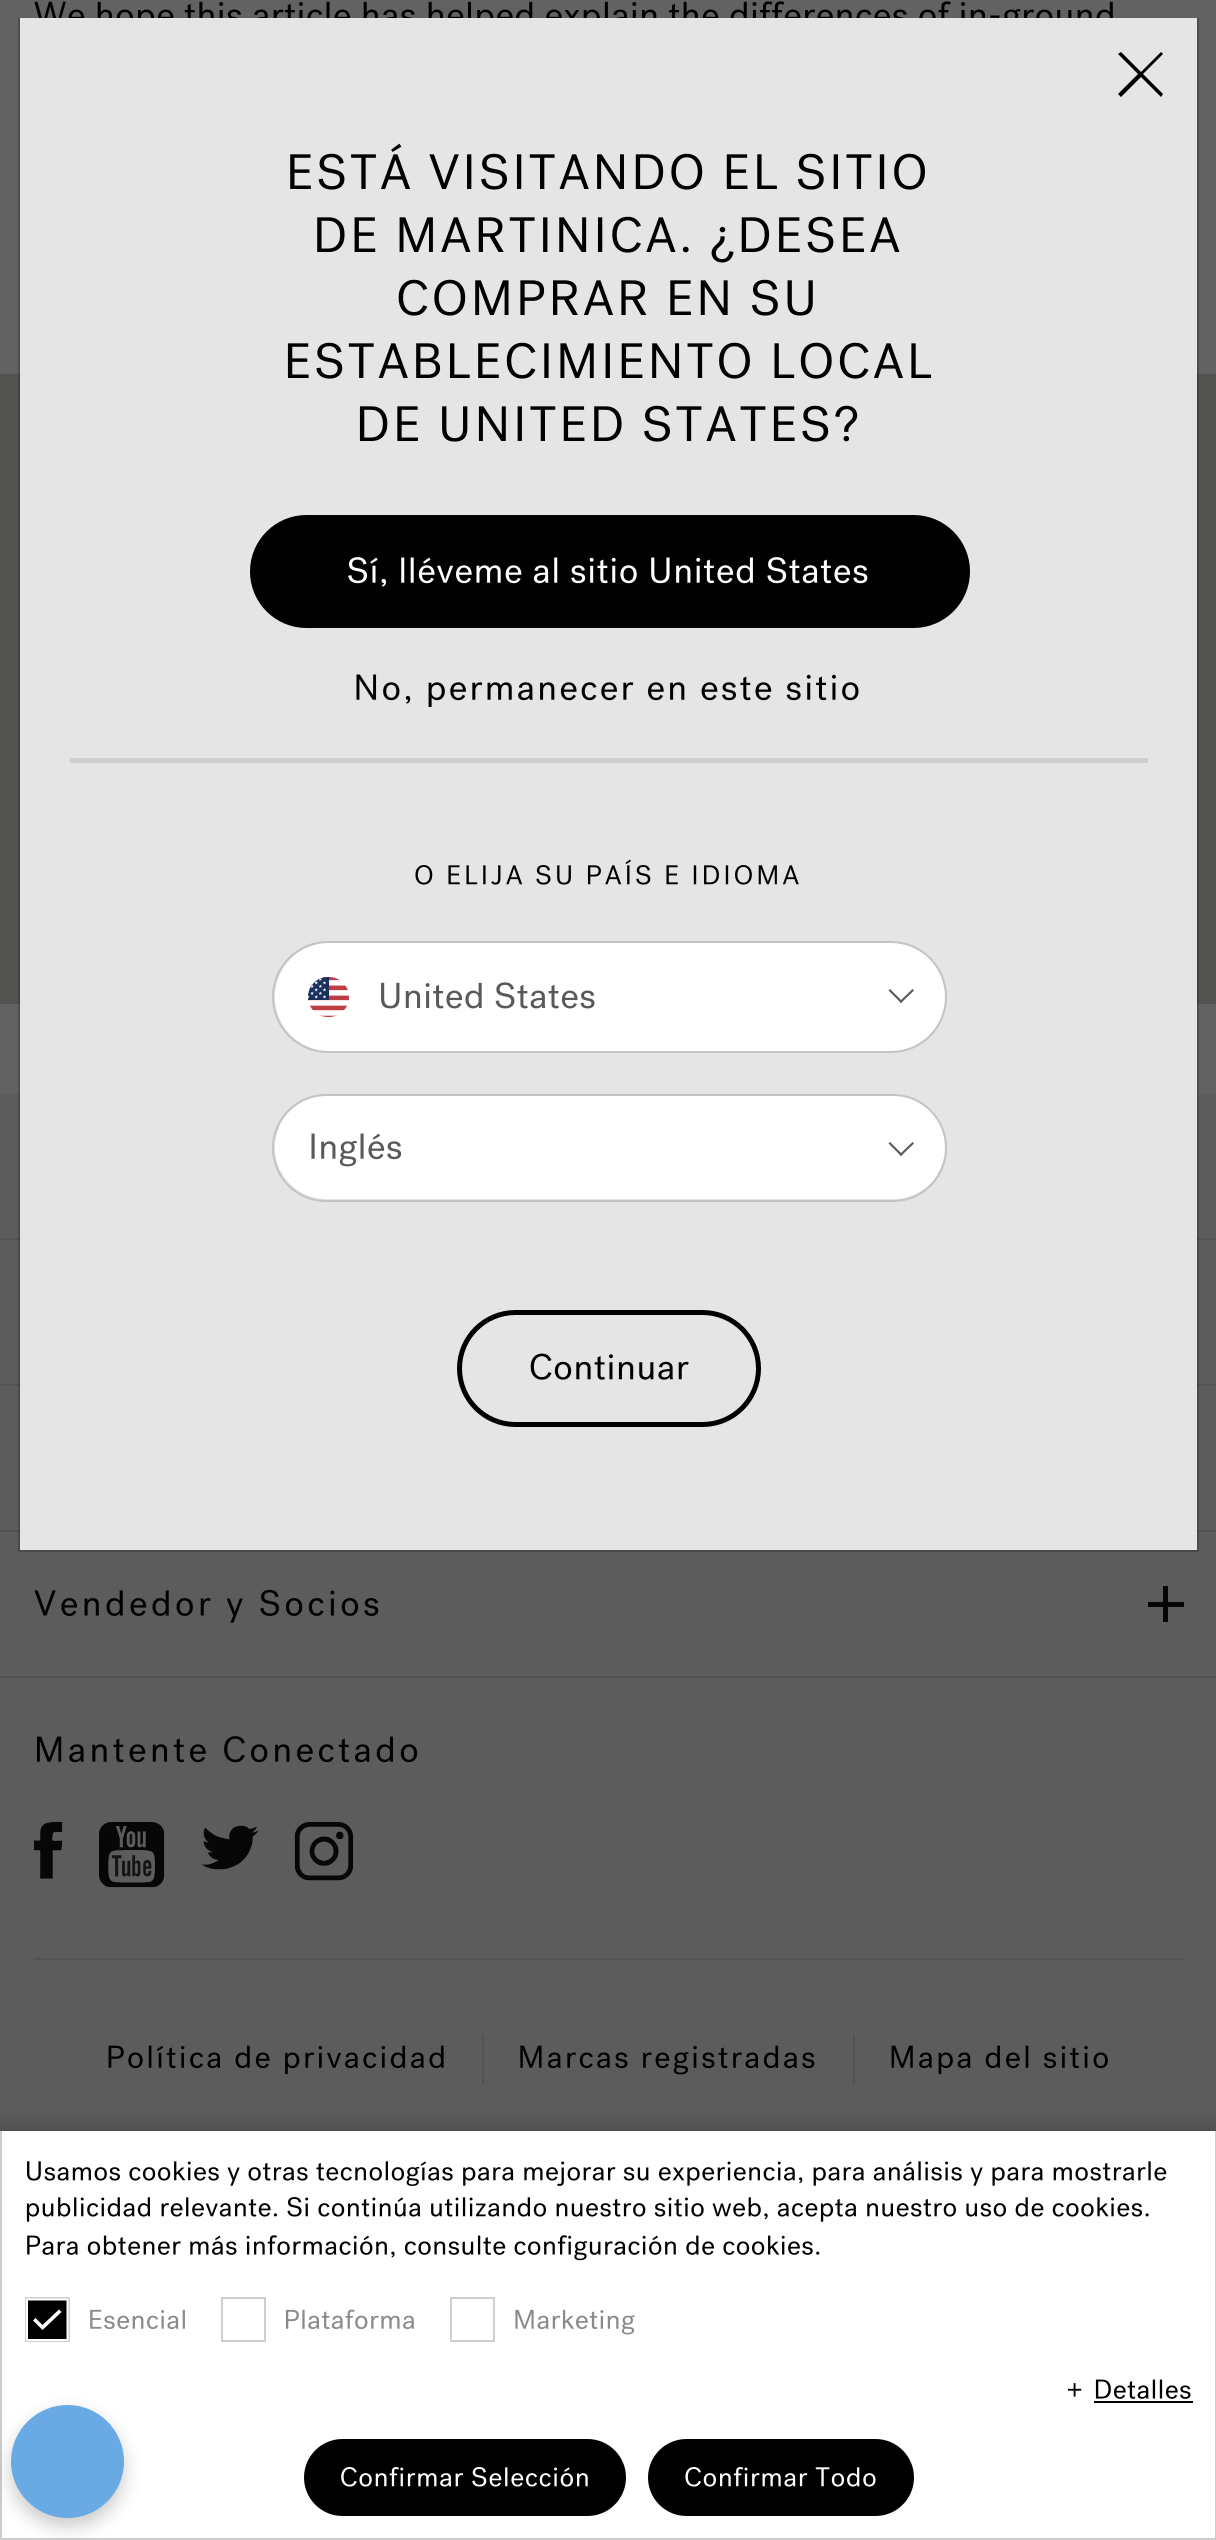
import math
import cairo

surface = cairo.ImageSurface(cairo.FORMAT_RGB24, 1216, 2540)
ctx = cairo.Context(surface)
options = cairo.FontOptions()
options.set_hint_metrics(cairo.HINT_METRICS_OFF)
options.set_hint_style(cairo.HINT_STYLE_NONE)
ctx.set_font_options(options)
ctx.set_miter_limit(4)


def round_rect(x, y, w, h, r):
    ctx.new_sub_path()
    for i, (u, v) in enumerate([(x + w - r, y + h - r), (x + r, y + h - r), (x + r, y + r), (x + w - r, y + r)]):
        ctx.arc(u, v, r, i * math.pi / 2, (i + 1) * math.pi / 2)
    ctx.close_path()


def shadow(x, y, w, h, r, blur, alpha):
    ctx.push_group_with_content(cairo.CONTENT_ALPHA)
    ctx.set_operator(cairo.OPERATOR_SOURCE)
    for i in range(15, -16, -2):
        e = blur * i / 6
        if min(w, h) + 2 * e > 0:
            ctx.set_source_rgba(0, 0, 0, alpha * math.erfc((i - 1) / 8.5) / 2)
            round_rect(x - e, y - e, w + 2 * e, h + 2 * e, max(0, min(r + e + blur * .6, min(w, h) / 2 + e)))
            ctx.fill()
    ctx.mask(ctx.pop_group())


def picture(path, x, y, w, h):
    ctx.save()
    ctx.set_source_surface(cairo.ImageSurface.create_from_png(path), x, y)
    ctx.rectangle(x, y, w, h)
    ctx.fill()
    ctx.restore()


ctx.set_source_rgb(0.384, 0.384, 0.384)
ctx.paint()
picture("img1.png", 34, 1, 1079, 17)
ctx.set_source_rgb(0.325, 0.325, 0.322)
ctx.rectangle(0, 374, 1216, 630)
ctx.fill()
ctx.set_source_rgb(0.361, 0.361, 0.361)
ctx.rectangle(0, 1094, 1216, 1037)
ctx.fill()
ctx.set_source_rgb(0.325, 0.325, 0.322)
ctx.rectangle(0, 1238, 1216, 2)
ctx.fill()
ctx.rectangle(0, 1384, 1216, 2)
ctx.fill()
ctx.rectangle(0, 1530, 1216, 2)
ctx.fill()
ctx.rectangle(0, 1676, 1216, 2)
ctx.fill()
picture("img2.png", 34, 1589, 345, 34)
ctx.set_source_rgb(0.027, 0.027, 0.027)
ctx.rectangle(1163, 1586, 5, 36)
ctx.fill()
ctx.rectangle(1148, 1602, 36, 5)
ctx.fill()
picture("img3.png", 37, 1736, 381, 27)
picture("img4.png", 34, 1822, 29, 57)
picture("img5.png", 99, 1822, 66, 66)
picture("img6.png", 201, 1825, 58, 45)
picture("img7.png", 294, 1822, 60, 59)
ctx.set_source_rgb(0.325, 0.325, 0.322)
ctx.rectangle(34, 1958, 1150, 2)
ctx.fill()
ctx.rectangle(482, 2034, 2, 50)
ctx.fill()
picture("img8.png", 108, 2045, 336, 30)
ctx.rectangle(853, 2034, 2, 50)
ctx.fill()
picture("img9.png", 520, 2045, 295, 30)
picture("img10.png", 891, 2045, 217, 30)
ctx.set_source_rgb(0.898, 0.898, 0.898)
ctx.rectangle(20, 18, 1177, 1532)
ctx.fill()
ctx.set_source_rgba(0, 0, 0, 0.2)
ctx.new_path()
ctx.move_to(1199, 18)
ctx.line_to(1199, 1552)
ctx.line_to(1197, 1550)
ctx.line_to(1197, 18)
ctx.close_path()
ctx.fill()
ctx.new_path()
ctx.move_to(1199, 1552)
ctx.line_to(18, 1552)
ctx.line_to(20, 1550)
ctx.line_to(1197, 1550)
ctx.close_path()
ctx.fill()
ctx.new_path()
ctx.move_to(18, 1552)
ctx.line_to(18, 18)
ctx.line_to(20, 18)
ctx.line_to(20, 1550)
ctx.close_path()
ctx.fill()
ctx.set_source_rgb(0, 0, 0)
ctx.set_fill_rule(cairo.FILL_RULE_EVEN_ODD)
ctx.new_path()
ctx.move_to(1163, 54)
ctx.line_to(1161, 52)
ctx.line_to(1141, 72)
ctx.line_to(1121, 52)
ctx.line_to(1118, 54)
ctx.line_to(1138, 74)
ctx.line_to(1118, 94)
ctx.line_to(1121, 97)
ctx.line_to(1141, 77)
ctx.line_to(1161, 97)
ctx.line_to(1163, 94)
ctx.line_to(1143, 74)
ctx.close_path()
ctx.fill()
picture("img11.png", 290, 143, 636, 47)
picture("img12.png", 317, 216, 583, 47)
picture("img13.png", 398, 279, 415, 37)
picture("img14.png", 287, 342, 645, 37)
picture("img15.png", 359, 405, 499, 37)
round_rect(251, 516, 718, 111, 55.5)
ctx.fill_preserve()
ctx.stroke()
picture("img16.png", 348, 557, 520, 30)
picture("img17.png", 356, 674, 503, 33)
ctx.set_source_rgb(0.812, 0.812, 0.804)
ctx.rectangle(70, 758, 1078, 5)
ctx.fill()
picture("img18.png", 415, 859, 384, 26)
ctx.set_source_rgb(1, 1, 1)
round_rect(275, 943, 670, 108, 54)
ctx.fill()
round_rect(273, 942, 673, 110, 55)
ctx.set_source_rgba(0, 0, 0, 0.15)
ctx.stroke()
picture("img19.png", 308, 977, 41, 40)
picture("img20.png", 381, 982, 214, 27)
ctx.set_source_rgb(0.345, 0.349, 0.353)
ctx.set_fill_rule(cairo.FILL_RULE_WINDING)
ctx.new_path()
ctx.move_to(912.5, 989)
ctx.line_to(914, 990.5)
ctx.line_to(901, 1003)
ctx.line_to(899.5, 1001.5)
ctx.close_path()
ctx.fill()
ctx.new_path()
ctx.move_to(890, 989)
ctx.line_to(902.5, 1001.5)
ctx.line_to(901, 1003)
ctx.line_to(888.5, 990.5)
ctx.close_path()
ctx.fill()
ctx.set_source_rgb(1, 1, 1)
round_rect(275, 1096, 670, 103, 51.5)
ctx.fill()
round_rect(273, 1095, 673, 106, 53)
ctx.set_source_rgba(0, 0, 0, 0.15)
ctx.stroke()
picture("img21.png", 311, 1133, 91, 34)
ctx.set_source_rgb(0.345, 0.349, 0.353)
ctx.new_path()
ctx.move_to(912.5, 1142)
ctx.line_to(914, 1143.5)
ctx.line_to(901, 1156)
ctx.line_to(899.5, 1154.5)
ctx.close_path()
ctx.fill()
ctx.new_path()
ctx.move_to(890, 1142)
ctx.line_to(902.5, 1154.5)
ctx.line_to(901, 1156)
ctx.line_to(888.5, 1143.5)
ctx.close_path()
ctx.fill()
round_rect(459.5, 1312.5, 299, 112, 56)
ctx.set_source_rgb(0, 0, 0)
ctx.set_line_width(5)
ctx.stroke()
picture("img22.png", 530, 1353, 159, 27)
ctx.set_source_rgb(0, 0, 0)
shadow(0, 2131, 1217, 409, 0, 11, 0.3)
ctx.set_source_rgb(1, 1, 1)
ctx.rectangle(0, 2131, 1216, 409)
ctx.fill()
ctx.set_source_rgb(0.8, 0.8, 0.8)
ctx.new_path()
ctx.move_to(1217, 2131)
ctx.line_to(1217, 2540)
ctx.line_to(1215, 2538)
ctx.line_to(1215, 2131)
ctx.close_path()
ctx.fill()
ctx.set_source_rgba(0, 0, 0, 0.2)
ctx.new_path()
ctx.move_to(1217, 2540)
ctx.line_to(0, 2540)
ctx.line_to(2, 2538)
ctx.line_to(1215, 2538)
ctx.close_path()
ctx.fill()
ctx.new_path()
ctx.move_to(0, 2540)
ctx.line_to(0, 2131)
ctx.line_to(2, 2131)
ctx.line_to(2, 2538)
ctx.close_path()
ctx.fill()
picture("img23.png", 27, 2161, 1140, 25)
picture("img24.png", 26, 2197, 1123, 25)
picture("img25.png", 27, 2235, 793, 26)
ctx.rectangle(26, 2298, 43, 43)
ctx.set_source_rgb(0.812, 0.812, 0.804)
ctx.set_line_width(2)
ctx.stroke()
ctx.set_source_rgb(0, 0, 0)
ctx.rectangle(28, 2300, 39, 39)
ctx.fill()
ctx.new_path()
ctx.move_to(27, 2299.5)
ctx.line_to(67.5, 2299.5)
ctx.line_to(67.5, 2340)
ctx.line_to(27, 2340)
ctx.close_path()
ctx.set_source_rgb(1, 1, 1)
ctx.stroke()
ctx.new_path()
ctx.move_to(33, 2320.5)
ctx.line_to(42.5, 2330)
ctx.line_to(61.5, 2312)
ctx.line_to(59, 2309.5)
ctx.line_to(42.5, 2325)
ctx.line_to(35.5, 2318)
ctx.close_path()
ctx.fill()
picture("img26.png", 90, 2309, 95, 21)
ctx.rectangle(222, 2298, 43, 43)
ctx.set_source_rgb(0.812, 0.812, 0.804)
ctx.stroke()
picture("img27.png", 285, 2309, 129, 21)
ctx.rectangle(451, 2298, 43, 43)
ctx.stroke()
picture("img28.png", 515, 2309, 120, 26)
picture("img29.png", 1067, 2383, 15, 14)
picture("img30.png", 1095, 2379, 96, 20)
ctx.set_source_rgb(0, 0, 0)
ctx.rectangle(1094, 2401, 99, 2)
ctx.fill()
round_rect(305, 2440, 320, 75, 37.5)
ctx.fill_preserve()
ctx.stroke()
picture("img31.png", 341, 2467, 247, 20)
round_rect(649, 2440, 264, 75, 37.5)
ctx.fill_preserve()
ctx.stroke()
picture("img32.png", 685, 2467, 191, 20)
ctx.set_source_rgb(0, 0, 0)
shadow(11, 2414, 113, 113, 56.5, 9, 0.2)
ctx.set_source_rgb(0.416, 0.667, 0.894)
ctx.arc(67.5, 2461.5, 56.5, 0, 2 * math.pi)
ctx.fill()
surface.write_to_png("page.png")
